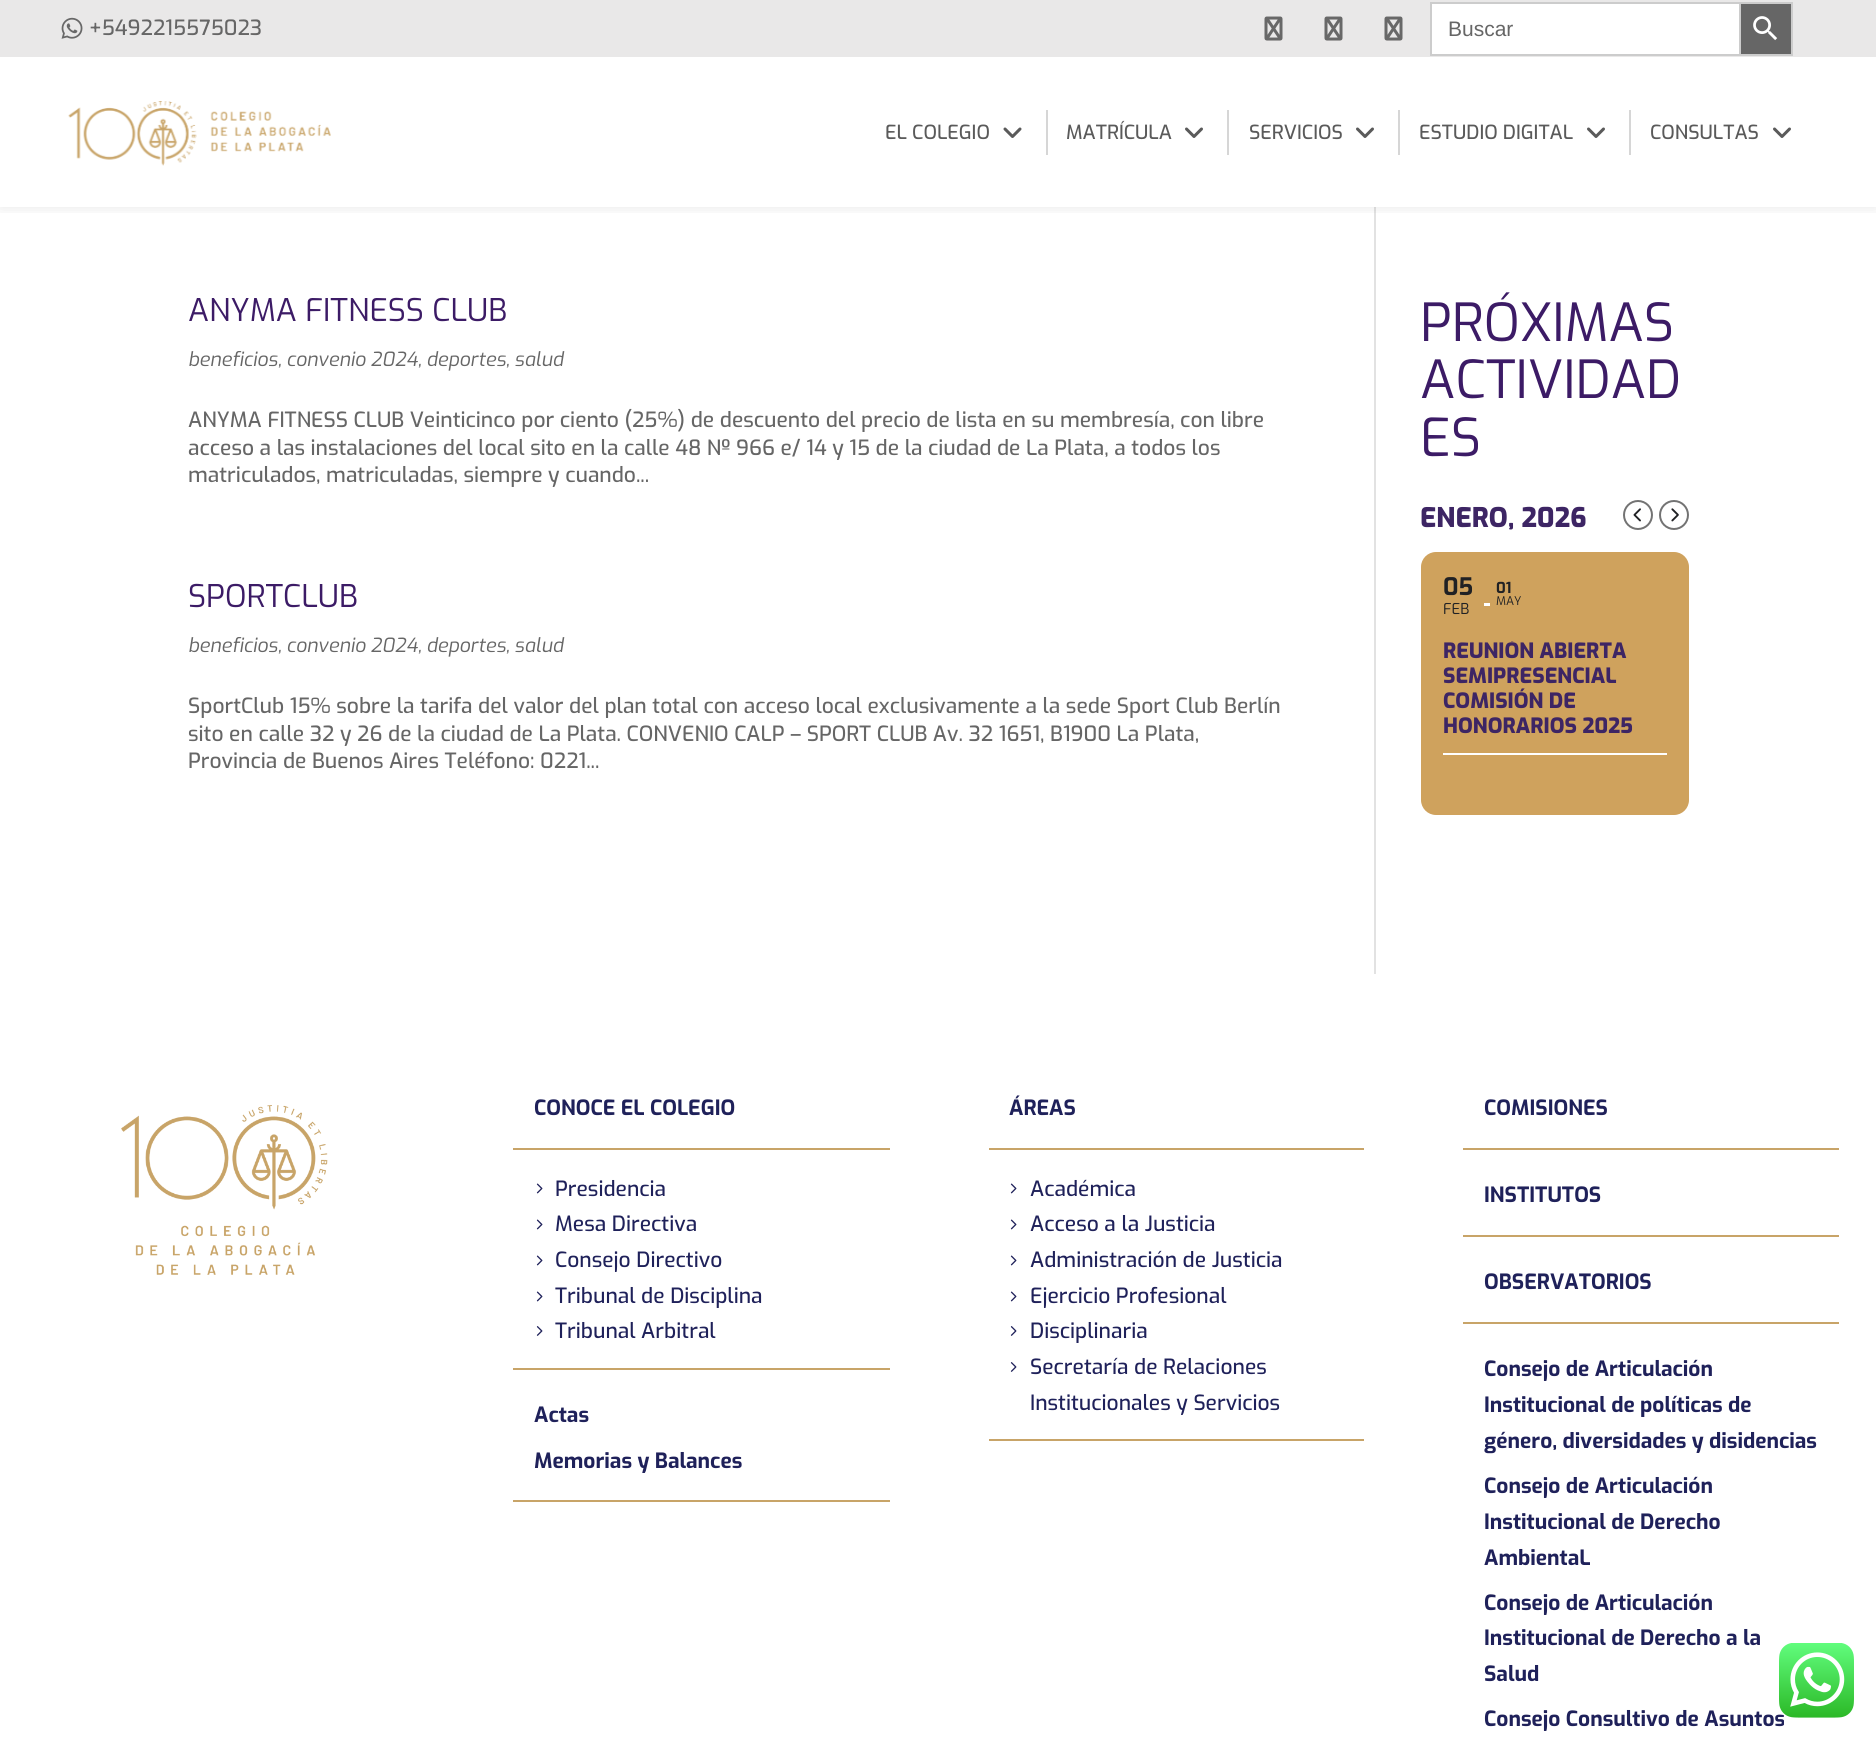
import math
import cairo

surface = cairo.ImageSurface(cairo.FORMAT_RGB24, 1876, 1740)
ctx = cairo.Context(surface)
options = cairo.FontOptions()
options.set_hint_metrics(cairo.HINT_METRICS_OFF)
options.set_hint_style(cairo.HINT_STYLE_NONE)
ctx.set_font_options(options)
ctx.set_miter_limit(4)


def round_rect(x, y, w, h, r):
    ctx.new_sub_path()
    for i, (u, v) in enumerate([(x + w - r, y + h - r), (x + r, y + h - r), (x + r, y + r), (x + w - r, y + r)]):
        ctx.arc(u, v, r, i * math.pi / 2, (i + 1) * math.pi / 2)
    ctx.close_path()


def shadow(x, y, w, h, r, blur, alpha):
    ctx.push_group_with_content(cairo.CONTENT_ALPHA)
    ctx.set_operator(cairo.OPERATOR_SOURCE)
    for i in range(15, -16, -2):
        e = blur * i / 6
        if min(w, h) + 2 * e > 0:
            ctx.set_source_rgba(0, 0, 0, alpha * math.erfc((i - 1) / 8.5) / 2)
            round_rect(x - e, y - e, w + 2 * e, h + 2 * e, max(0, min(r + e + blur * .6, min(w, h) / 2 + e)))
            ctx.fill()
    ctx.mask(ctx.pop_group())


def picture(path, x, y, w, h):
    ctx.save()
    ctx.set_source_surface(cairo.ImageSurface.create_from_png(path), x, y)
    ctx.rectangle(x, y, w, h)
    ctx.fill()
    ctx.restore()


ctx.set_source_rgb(1, 1, 1)
ctx.paint()
ctx.set_source_rgb(0.886, 0.886, 0.886)
ctx.rectangle(1374, 207, 2, 767)
ctx.fill()
ctx.save()
ctx.rectangle(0, 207, 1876, 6)
ctx.clip()
ctx.set_source_rgb(0, 0, 0)
shadow(0, 57, 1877, 150, 0, 7.5, 0.1)
ctx.restore()
ctx.set_source_rgb(0.914, 0.91, 0.91)
ctx.rectangle(0, 0, 1876, 57)
ctx.fill()
picture("img1.png", 61, 17, 22, 22)
ctx.select_font_face("Exo Medium")
ctx.set_font_size(21)
ctx.set_source_rgb(0.4, 0.4, 0.4)
ctx.move_to(89, 35)
ctx.show_text("+5492215575023")
picture("img2.png", 1264, 16, 19, 25)
picture("img2.png", 1324, 16, 19, 25)
picture("img2.png", 1384, 16, 19, 25)
ctx.set_source_rgb(1, 1, 1)
ctx.rectangle(1432, 4, 307, 50)
ctx.fill()
ctx.set_source_rgb(0.8, 0.8, 0.8)
ctx.rectangle(1430, 2, 309, 2)
ctx.fill()
ctx.rectangle(1430, 54, 309, 2)
ctx.fill()
ctx.rectangle(1430, 2, 2, 54)
ctx.fill()
ctx.select_font_face("Liberation Sans")
ctx.set_source_rgb(0.4, 0.4, 0.4)
ctx.move_to(1448, 36)
ctx.show_text("Buscar")
ctx.rectangle(1740, 3, 52, 52)
ctx.fill_preserve()
ctx.set_source_rgb(0.8, 0.8, 0.8)
ctx.stroke()
picture("img3.png", 1753, 16, 25, 25)
picture("img4.png", 68, 101, 263, 65)
ctx.select_font_face("Exo Medium")
ctx.set_font_size(19.5)
ctx.set_source_rgb(0.353, 0.353, 0.353)
ctx.move_to(885, 139)
ctx.show_text("EL COLEGIO")
picture("img5.png", 1003, 127, 19, 11)
ctx.set_source_rgb(0.839, 0.839, 0.839)
ctx.rectangle(1046, 110, 2, 45)
ctx.fill()
ctx.set_source_rgb(0.353, 0.353, 0.353)
ctx.move_to(1066, 139)
ctx.show_text("MATRÍCULA")
picture("img6.png", 1185, 127, 18, 11)
ctx.set_source_rgb(0.839, 0.839, 0.839)
ctx.rectangle(1227, 110, 2, 45)
ctx.fill()
ctx.set_source_rgb(0.353, 0.353, 0.353)
ctx.move_to(1249, 139)
ctx.show_text("SERVICIOS")
picture("img6.png", 1356, 127, 18, 11)
ctx.set_source_rgb(0.839, 0.839, 0.839)
ctx.rectangle(1398, 110, 2, 45)
ctx.fill()
ctx.set_source_rgb(0.353, 0.353, 0.353)
ctx.move_to(1419, 139)
ctx.show_text("ESTUDIO DIGITAL")
picture("img6.png", 1587, 127, 18, 11)
ctx.set_source_rgb(0.839, 0.839, 0.839)
ctx.rectangle(1629, 110, 2, 45)
ctx.fill()
ctx.set_source_rgb(0.353, 0.353, 0.353)
ctx.move_to(1650, 139)
ctx.show_text("CONSULTAS")
picture("img6.png", 1773, 127, 18, 11)
ctx.select_font_face("Exo")
ctx.set_font_size(31.25)
ctx.set_source_rgb(0.235, 0.106, 0.4)
ctx.move_to(188, 321)
ctx.show_text("ANYMA FITNESS CLUB")
ctx.select_font_face("Exo", cairo.FONT_SLANT_ITALIC)
ctx.set_font_size(19.5)
ctx.set_source_rgb(0.4, 0.4, 0.4)
ctx.move_to(188, 366)
ctx.show_text("beneficios, convenio 2024, deportes, salud")
ctx.select_font_face("Exo Medium")
ctx.set_font_size(21)
ctx.move_to(188, 427)
ctx.show_text("ANYMA FITNESS CLUB Veinticinco por ciento (25%) de descuento del precio de lista en su membresía, con libre")
ctx.move_to(188, 455)
ctx.show_text("acceso a las instalaciones del local sito en la calle 48 Nº 966 e/ 14 y 15 de la ciudad de La Plata, a todos los")
ctx.move_to(188, 482)
ctx.show_text("matriculados, matriculadas, siempre y cuando...")
ctx.select_font_face("Exo")
ctx.set_font_size(31.25)
ctx.set_source_rgb(0.235, 0.106, 0.4)
ctx.move_to(188, 607)
ctx.show_text("SPORTCLUB")
ctx.select_font_face("Exo", cairo.FONT_SLANT_ITALIC)
ctx.set_font_size(19.5)
ctx.set_source_rgb(0.4, 0.4, 0.4)
ctx.move_to(188, 652)
ctx.show_text("beneficios, convenio 2024, deportes, salud")
ctx.select_font_face("Exo Medium")
ctx.set_font_size(21)
ctx.move_to(188, 713)
ctx.show_text("SportClub 15% sobre la tarifa del valor del plan total con acceso local exclusivamente a la sede Sport Club Berlín")
ctx.move_to(188, 741)
ctx.show_text("sito en calle 32 y 26 de la ciudad de La Plata. CONVENIO CALP – SPORT CLUB Av. 32 1651, B1900 La Plata,")
ctx.move_to(188, 768)
ctx.show_text("Provincia de Buenos Aires Teléfono: 0221...")
ctx.select_font_face("Exo")
ctx.set_font_size(52.5)
ctx.set_source_rgb(0.235, 0.106, 0.4)
ctx.move_to(1420, 341)
ctx.show_text("PRÓXIMAS")
ctx.move_to(1420, 398)
ctx.show_text("ACTIVIDAD")
ctx.move_to(1420, 456)
ctx.show_text("ES")
ctx.select_font_face("Exo ExtraBold")
ctx.set_font_size(27)
ctx.set_source_rgb(0.239, 0.145, 0.392)
ctx.move_to(1420, 527)
ctx.show_text("ENERO, 2026")
ctx.new_path()
ctx.arc(1638, 515, 14, 0, 2 * math.pi)
ctx.set_source_rgb(0.451, 0.451, 0.451)
ctx.stroke()
picture("img7.png", 1633, 508, 8, 14)
ctx.arc(1674, 515, 14, 0, 2 * math.pi)
ctx.stroke()
picture("img8.png", 1671, 508, 8, 14)
ctx.set_source_rgb(0.812, 0.635, 0.365)
round_rect(1421, 552, 268, 263, 15)
ctx.fill()
ctx.select_font_face("Exo", cairo.FONT_SLANT_NORMAL, cairo.FONT_WEIGHT_BOLD)
ctx.set_font_size(24)
ctx.set_source_rgb(0.125, 0.129, 0.141)
ctx.move_to(1443, 595)
ctx.show_text("05")
ctx.select_font_face("Exo")
ctx.set_font_size(15)
ctx.move_to(1443, 614)
ctx.show_text("FEB")
ctx.select_font_face("Exo", cairo.FONT_SLANT_NORMAL, cairo.FONT_WEIGHT_BOLD)
ctx.move_to(1496, 593)
ctx.show_text("01")
ctx.set_source_rgb(1, 1, 1)
ctx.rectangle(1484, 603, 6, 3)
ctx.fill()
ctx.select_font_face("Exo")
ctx.set_font_size(12)
ctx.set_source_rgb(0.125, 0.129, 0.141)
ctx.move_to(1496, 605)
ctx.show_text("MAY")
ctx.set_source_rgb(1, 1, 1)
ctx.rectangle(1443, 753, 224, 2)
ctx.fill()
ctx.save()
ctx.rectangle(1443, 641, 224, 136)
ctx.clip()
ctx.select_font_face("Exo ExtraBold")
ctx.set_font_size(21)
ctx.set_source_rgb(0.239, 0.145, 0.392)
ctx.move_to(1443, 658)
ctx.show_text("REUNIÓN ABIERTA")
ctx.restore()
ctx.select_font_face("Exo ExtraBold")
ctx.set_font_size(21)
ctx.set_source_rgb(0.239, 0.145, 0.392)
ctx.move_to(1443, 683)
ctx.show_text("SEMIPRESENCIAL")
ctx.move_to(1443, 708)
ctx.show_text("COMISIÓN DE")
ctx.move_to(1443, 733)
ctx.show_text("HONORARIOS 2025")
picture("img9.png", 121, 1105, 207, 170)
ctx.select_font_face("Exo", cairo.FONT_SLANT_NORMAL, cairo.FONT_WEIGHT_BOLD)
ctx.set_source_rgb(0.122, 0.129, 0.353)
ctx.move_to(534, 1115)
ctx.show_text("CONOCE EL COLEGIO")
ctx.set_source_rgb(0.784, 0.643, 0.408)
ctx.rectangle(513, 1148, 377, 2)
ctx.fill()
picture("img10.png", 536, 1183, 7, 11)
ctx.select_font_face("Exo Medium")
ctx.set_source_rgb(0.122, 0.129, 0.353)
ctx.move_to(555, 1196)
ctx.show_text("Presidencia")
picture("img10.png", 536, 1219, 7, 11)
ctx.move_to(555, 1231)
ctx.show_text("Mesa Directiva")
picture("img10.png", 536, 1255, 7, 11)
ctx.move_to(555, 1267)
ctx.show_text("Consejo Directivo")
picture("img10.png", 536, 1291, 7, 11)
ctx.move_to(555, 1303)
ctx.show_text("Tribunal de Disciplina")
picture("img11.png", 536, 1326, 7, 10)
ctx.move_to(555, 1338)
ctx.show_text("Tribunal Arbitral")
ctx.set_source_rgb(0.784, 0.643, 0.408)
ctx.rectangle(513, 1368, 377, 2)
ctx.fill()
ctx.select_font_face("Exo", cairo.FONT_SLANT_NORMAL, cairo.FONT_WEIGHT_BOLD)
ctx.set_source_rgb(0.122, 0.129, 0.353)
ctx.move_to(534, 1422)
ctx.show_text("Actas")
ctx.move_to(534, 1468)
ctx.show_text("Memorias y Balances")
ctx.set_source_rgb(0.784, 0.643, 0.408)
ctx.rectangle(513, 1500, 377, 2)
ctx.fill()
ctx.set_source_rgb(0.122, 0.129, 0.353)
ctx.move_to(1009, 1115)
ctx.show_text("ÁREAS")
ctx.set_source_rgb(0.784, 0.643, 0.408)
ctx.rectangle(989, 1148, 375, 2)
ctx.fill()
picture("img10.png", 1010, 1183, 7, 11)
ctx.select_font_face("Exo Medium")
ctx.set_source_rgb(0.122, 0.129, 0.353)
ctx.move_to(1030, 1196)
ctx.show_text("Académica")
picture("img10.png", 1010, 1219, 7, 11)
ctx.move_to(1030, 1231)
ctx.show_text("Acceso a la Justicia")
picture("img10.png", 1010, 1255, 7, 11)
ctx.move_to(1030, 1267)
ctx.show_text("Administración de Justicia")
picture("img10.png", 1010, 1291, 7, 11)
ctx.move_to(1030, 1303)
ctx.show_text("Ejercicio Profesional")
picture("img11.png", 1010, 1326, 7, 10)
ctx.move_to(1030, 1338)
ctx.show_text("Disciplinaria")
picture("img11.png", 1010, 1362, 7, 10)
ctx.move_to(1030, 1374)
ctx.show_text("Secretaría de Relaciones")
ctx.move_to(1030, 1410)
ctx.show_text("Institucionales y Servicios")
ctx.set_source_rgb(0.784, 0.643, 0.408)
ctx.rectangle(989, 1439, 375, 2)
ctx.fill()
ctx.select_font_face("Exo", cairo.FONT_SLANT_NORMAL, cairo.FONT_WEIGHT_BOLD)
ctx.set_source_rgb(0.122, 0.129, 0.353)
ctx.move_to(1484, 1115)
ctx.show_text("COMISIONES")
ctx.set_source_rgb(0.784, 0.643, 0.408)
ctx.rectangle(1463, 1148, 376, 2)
ctx.fill()
ctx.set_source_rgb(0.122, 0.129, 0.353)
ctx.move_to(1484, 1202)
ctx.show_text("INSTITUTOS")
ctx.set_source_rgb(0.784, 0.643, 0.408)
ctx.rectangle(1463, 1235, 376, 2)
ctx.fill()
ctx.set_source_rgb(0.122, 0.129, 0.353)
ctx.move_to(1484, 1289)
ctx.show_text("OBSERVATORIOS")
ctx.set_source_rgb(0.784, 0.643, 0.408)
ctx.rectangle(1463, 1322, 376, 2)
ctx.fill()
ctx.set_source_rgb(0.122, 0.129, 0.353)
ctx.move_to(1484, 1376)
ctx.show_text("Consejo de Articulación")
ctx.move_to(1484, 1412)
ctx.show_text("Institucional de políticas de")
ctx.move_to(1484, 1448)
ctx.show_text("género, diversidades y disidencias")
ctx.move_to(1484, 1493)
ctx.show_text("Consejo de Articulación")
ctx.move_to(1484, 1529)
ctx.show_text("Institucional de Derecho")
ctx.move_to(1484, 1565)
ctx.show_text("AmbientaL")
ctx.move_to(1484, 1610)
ctx.show_text("Consejo de Articulación")
ctx.move_to(1484, 1645)
ctx.show_text("Institucional de Derecho a la")
ctx.move_to(1484, 1681)
ctx.show_text("Salud")
ctx.move_to(1484, 1726)
ctx.show_text("Consejo Consultivo de Asuntos")
picture("img12.png", 1779, 1643, 75, 75)
surface.write_to_png("page.png")
